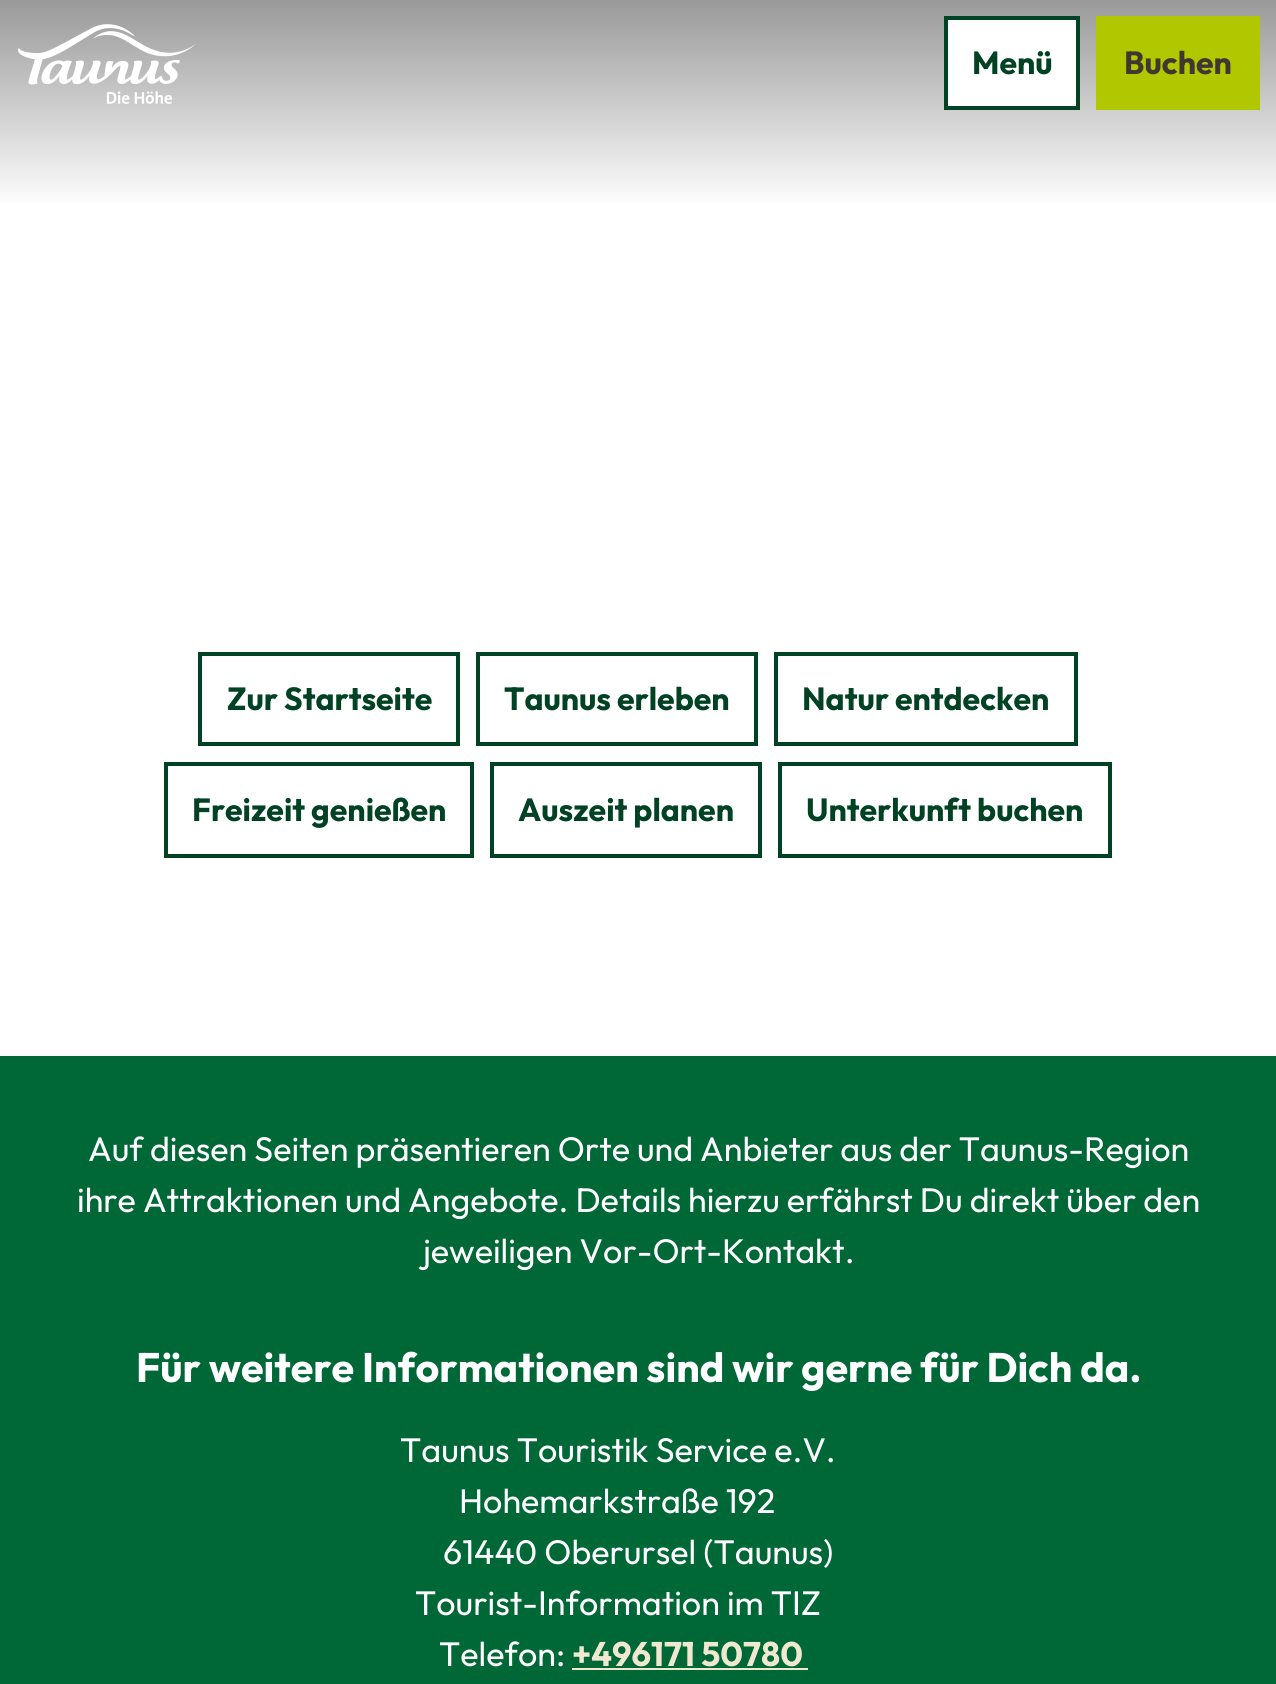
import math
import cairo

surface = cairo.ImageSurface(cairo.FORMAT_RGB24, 1276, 1684)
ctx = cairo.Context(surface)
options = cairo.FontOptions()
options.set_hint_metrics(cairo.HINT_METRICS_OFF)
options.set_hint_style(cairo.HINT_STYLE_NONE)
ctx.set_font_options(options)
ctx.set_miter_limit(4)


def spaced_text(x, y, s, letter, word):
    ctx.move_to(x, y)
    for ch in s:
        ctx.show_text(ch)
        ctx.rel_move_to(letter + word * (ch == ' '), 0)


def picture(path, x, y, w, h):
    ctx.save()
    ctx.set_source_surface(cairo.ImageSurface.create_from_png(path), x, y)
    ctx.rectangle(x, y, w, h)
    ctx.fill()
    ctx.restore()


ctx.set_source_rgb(1, 1, 1)
ctx.paint()
gradient = cairo.LinearGradient(638, 0, 638, 208)
gradient.add_color_stop_rgba(0, 0.6, 0.6, 0.6, 1)
gradient.add_color_stop_rgba(1, 1, 1, 1, 1)
ctx.set_source(gradient)
ctx.rectangle(0, 0, 1276, 203)
ctx.fill()
picture("img1.png", 18, 24, 178, 80)
ctx.set_source_rgb(1, 1, 1)
ctx.rectangle(946, 18, 132, 90)
ctx.fill_preserve()
ctx.set_source_rgb(0, 0.259, 0.137)
ctx.set_line_width(4)
ctx.stroke()
ctx.select_font_face("Outfit Thin")
ctx.set_font_size(32)
ctx.move_to(972, 74)
ctx.show_text("Menü")
ctx.set_source_rgb(0.694, 0.784, 0)
ctx.rectangle(1096, 16, 164, 94)
ctx.fill()
ctx.set_source_rgb(0.247, 0.216, 0.192)
ctx.move_to(1124, 74)
ctx.show_text("Buchen")
ctx.rectangle(200, 654, 258, 90)
ctx.set_source_rgb(0, 0.259, 0.137)
ctx.stroke()
ctx.move_to(227, 710)
ctx.show_text("Zur Startseite")
ctx.rectangle(478, 654, 278, 90)
ctx.stroke()
ctx.move_to(504, 710)
ctx.show_text("Taunus erleben")
ctx.rectangle(776, 654, 300, 90)
ctx.stroke()
ctx.move_to(802, 710)
ctx.show_text("Natur entdecken")
ctx.rectangle(166, 764, 306, 92)
ctx.stroke()
ctx.move_to(192, 821)
ctx.show_text("Freizeit genießen")
ctx.rectangle(492, 764, 268, 92)
ctx.stroke()
ctx.move_to(518, 821)
ctx.show_text("Auszeit planen")
ctx.rectangle(780, 764, 330, 92)
ctx.stroke()
ctx.move_to(806, 821)
ctx.show_text("Unterkunft buchen")
ctx.set_source_rgb(0, 0.408, 0.216)
ctx.rectangle(0, 1056, 1276, 628)
ctx.fill()
ctx.select_font_face("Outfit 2 Thin")
ctx.set_font_size(34.1)
ctx.set_source_rgb(1, 1, 1)
spaced_text(88, 1161, "Auf diesen Seiten präsentieren Orte und Anbieter aus der Taunus-Region", 0, -0.1)
spaced_text(77, 1212, "ihre Attraktionen und Angebote. Details hierzu erfährst Du direkt über den", 0, -0.1)
ctx.move_to(423, 1263)
ctx.show_text("jeweiligen Vor-Ort-Kontakt.")
ctx.select_font_face("Outfit Thin")
ctx.set_font_size(41.2)
ctx.move_to(136, 1382)
ctx.show_text("Für weitere Informationen sind wir gerne für Dich da.")
ctx.select_font_face("Outfit 2 Thin")
ctx.set_font_size(34.1)
ctx.move_to(400, 1462)
ctx.show_text("Taunus Touristik Service e.V.")
ctx.move_to(459, 1513)
ctx.show_text("Hohemarkstraße 192")
ctx.move_to(443, 1564)
ctx.show_text("61440 Oberursel (Taunus)")
ctx.move_to(415, 1615)
ctx.show_text("Tourist-Information im TIZ")
ctx.move_to(439, 1666)
ctx.show_text("Telefon:")
ctx.select_font_face("Outfit Thin")
ctx.set_source_rgb(0.945, 0.91, 0.816)
ctx.move_to(572, 1666)
ctx.show_text("+496171 50780")
ctx.rectangle(572, 1668, 236, 2)
ctx.fill()
surface.write_to_png("page.png")
